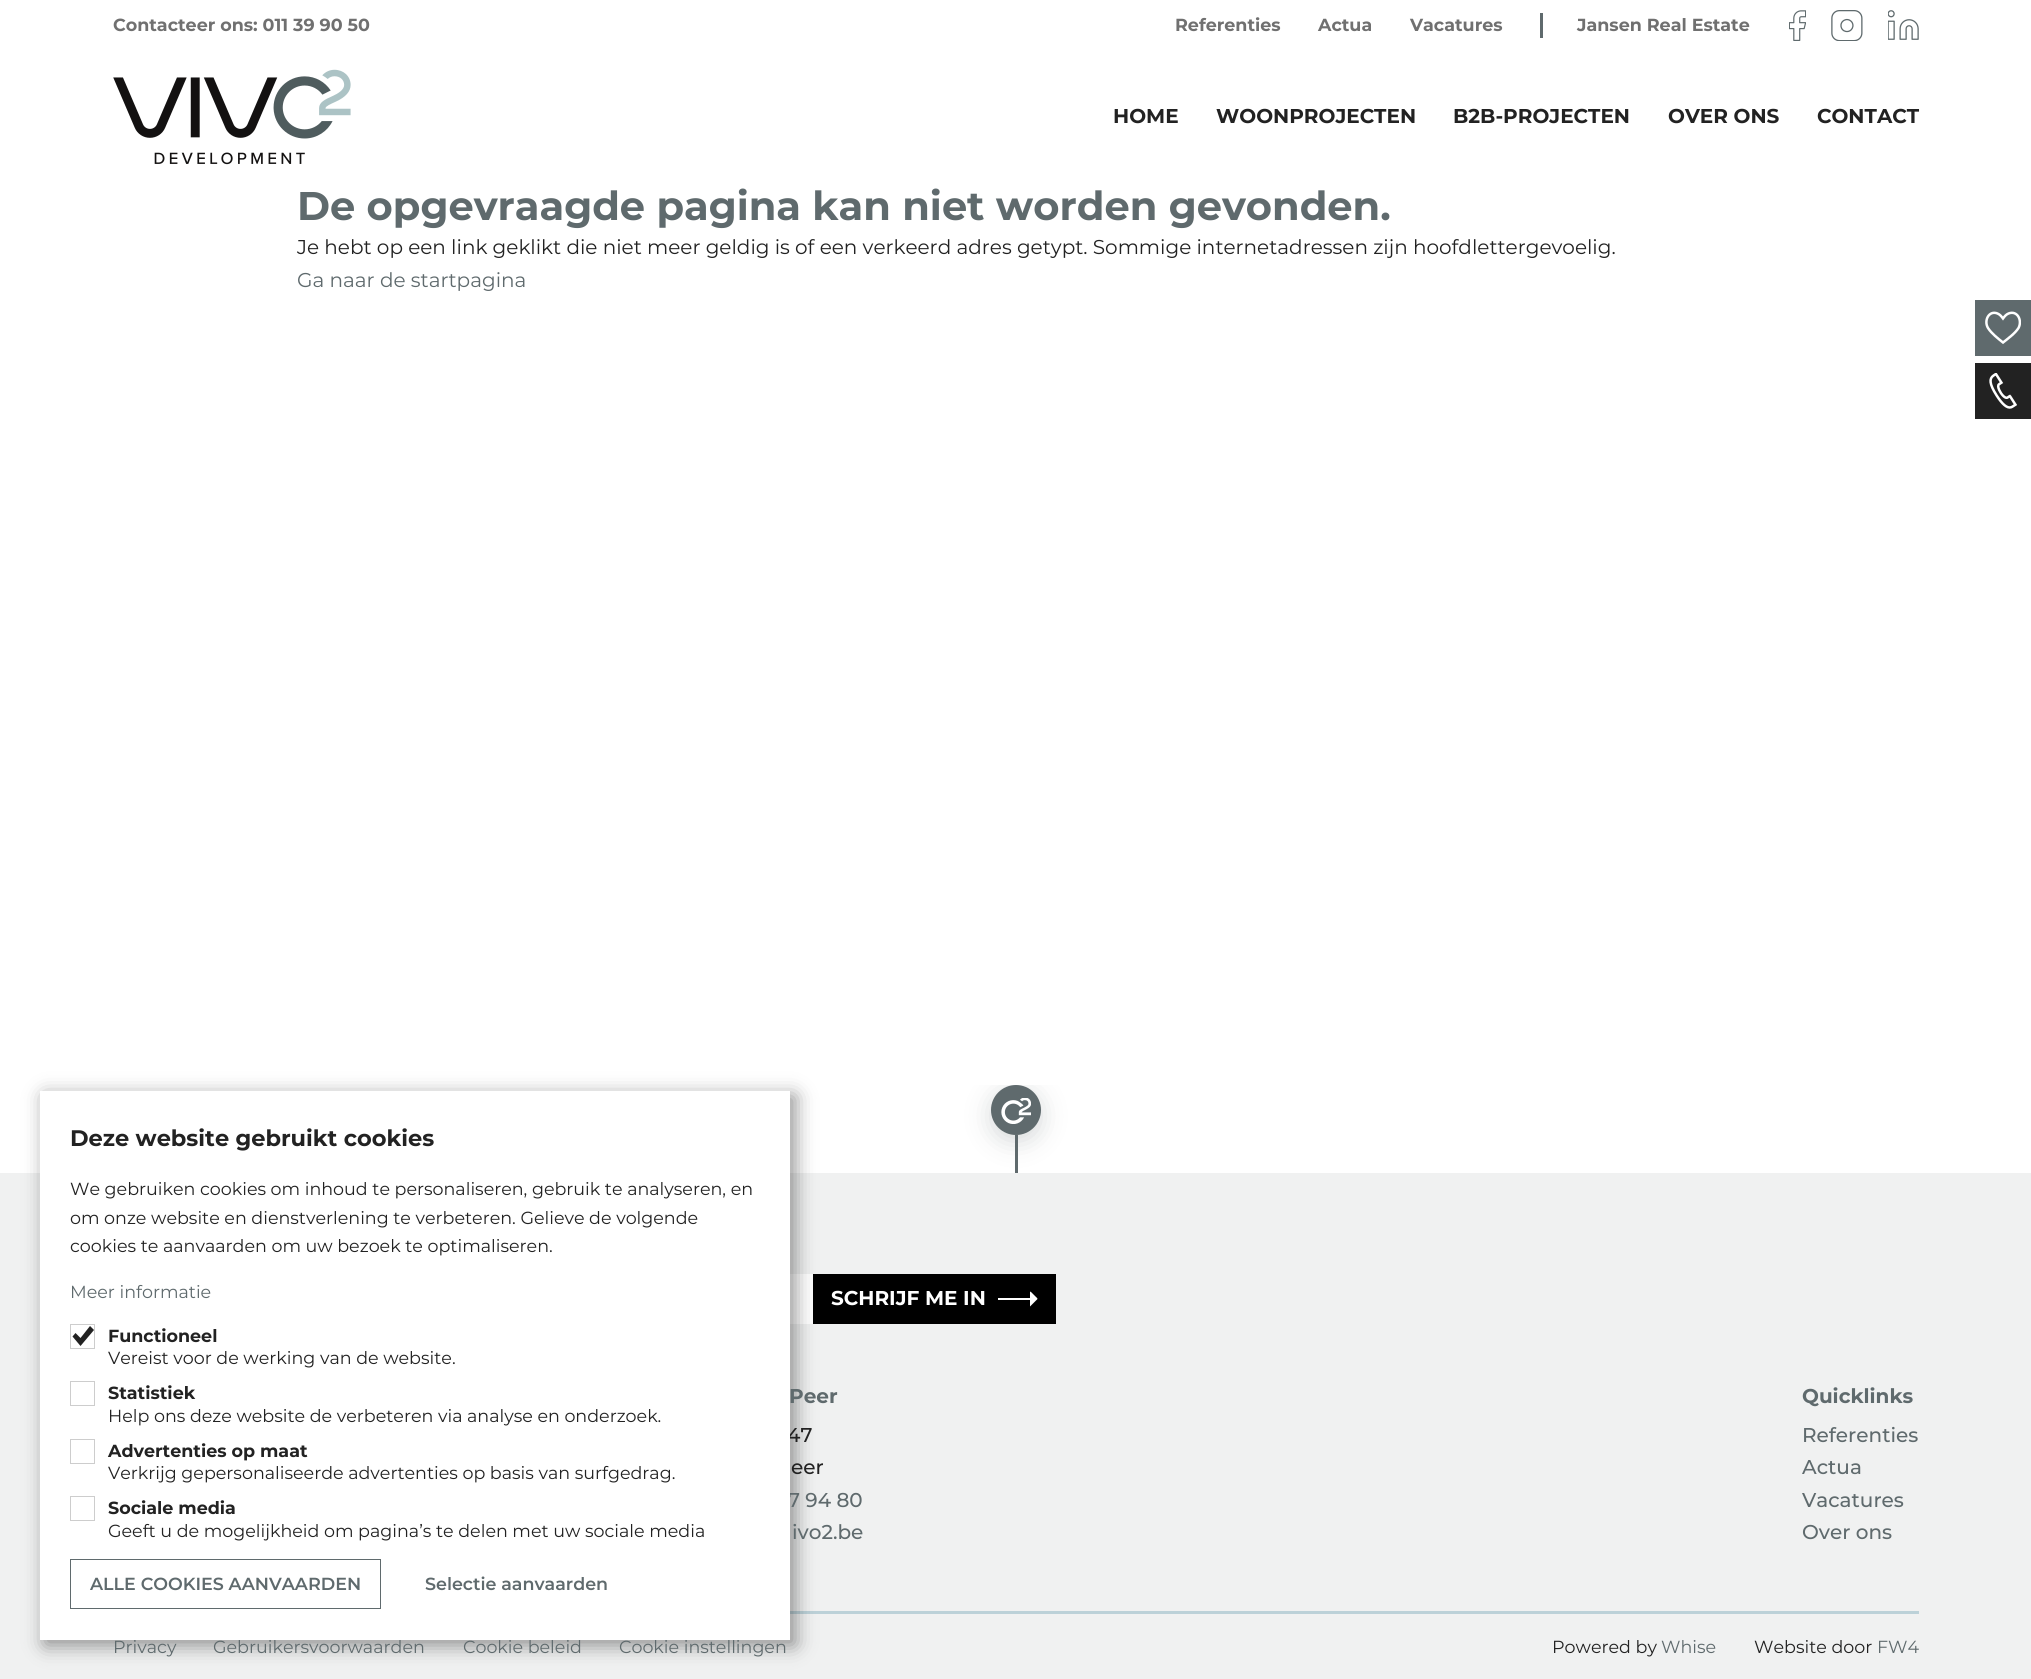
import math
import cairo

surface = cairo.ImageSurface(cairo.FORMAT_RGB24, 2031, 1679)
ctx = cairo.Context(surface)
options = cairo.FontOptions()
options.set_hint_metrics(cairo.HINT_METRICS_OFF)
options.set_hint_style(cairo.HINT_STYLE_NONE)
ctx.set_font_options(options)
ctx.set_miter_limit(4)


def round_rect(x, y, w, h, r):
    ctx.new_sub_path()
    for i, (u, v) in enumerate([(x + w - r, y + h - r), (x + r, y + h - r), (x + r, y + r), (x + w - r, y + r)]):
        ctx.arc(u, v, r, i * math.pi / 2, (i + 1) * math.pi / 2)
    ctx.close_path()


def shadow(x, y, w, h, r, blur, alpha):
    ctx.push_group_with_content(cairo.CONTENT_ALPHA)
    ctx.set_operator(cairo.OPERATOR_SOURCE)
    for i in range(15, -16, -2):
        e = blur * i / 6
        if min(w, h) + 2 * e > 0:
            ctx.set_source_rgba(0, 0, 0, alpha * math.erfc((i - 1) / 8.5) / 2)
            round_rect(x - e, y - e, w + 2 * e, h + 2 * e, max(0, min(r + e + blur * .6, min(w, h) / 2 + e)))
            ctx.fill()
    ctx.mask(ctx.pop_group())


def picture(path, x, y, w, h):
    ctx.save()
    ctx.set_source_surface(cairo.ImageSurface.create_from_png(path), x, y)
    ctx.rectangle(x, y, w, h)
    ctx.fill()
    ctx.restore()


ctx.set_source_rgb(1, 1, 1)
ctx.paint()
ctx.select_font_face("Montserrat", cairo.FONT_SLANT_NORMAL, cairo.FONT_WEIGHT_BOLD)
ctx.set_font_size(17.5)
ctx.set_source_rgb(0.439, 0.439, 0.439)
ctx.move_to(113, 31)
ctx.show_text("Contacteer ons: 011 39 90 50")
ctx.move_to(1175, 31)
ctx.show_text("Referenties")
ctx.move_to(1318, 31)
ctx.show_text("Actua")
ctx.move_to(1410, 31)
ctx.show_text("Vacatures")
ctx.set_source_rgb(0.373, 0.416, 0.427)
ctx.rectangle(1540, 13, 3, 25)
ctx.fill()
ctx.set_source_rgb(0.439, 0.439, 0.439)
ctx.move_to(1577, 31)
ctx.show_text("Jansen Real Estate")
picture("img1.png", 1789, 10, 17, 31)
picture("img2.png", 1831, 10, 32, 31)
picture("img3.png", 1888, 10, 31, 30)
picture("img4.png", 113, 69, 238, 96)
ctx.set_font_size(20)
ctx.set_source_rgb(0.133, 0.133, 0.133)
ctx.move_to(1113, 123)
ctx.show_text("HOME")
ctx.move_to(1216, 123)
ctx.show_text("WOONPROJECTEN")
ctx.move_to(1453, 123)
ctx.show_text("B2B-PROJECTEN")
ctx.move_to(1668, 123)
ctx.show_text("OVER ONS")
ctx.move_to(1817, 123)
ctx.show_text("CONTACT")
ctx.set_font_size(40)
ctx.set_source_rgb(0.373, 0.416, 0.427)
ctx.move_to(297, 220)
ctx.show_text("De opgevraagde pagina kan niet worden gevonden.")
ctx.select_font_face("Montserrat")
ctx.set_font_size(20)
ctx.set_source_rgb(0.133, 0.133, 0.133)
ctx.move_to(297, 254)
ctx.show_text("Je hebt op een link geklikt die niet meer geldig is of een verkeerd adres getypt. Sommige internetadressen zijn hoofdlettergevoelig.")
ctx.set_source_rgb(0.373, 0.416, 0.427)
ctx.move_to(297, 287)
ctx.show_text("Ga naar de startpagina")
ctx.rectangle(1975, 300, 56, 56)
ctx.fill()
ctx.save()
ctx.rectangle(1985, 311, 36, 34)
ctx.clip()
ctx.new_path()
ctx.move_to(2003, 342.5)
ctx.curve_to(2008, 338.5, 2015, 333.5, 2018.5, 328)
ctx.curve_to(2022.5, 320.5, 2017.5, 310, 2008.5, 313.5)
ctx.curve_to(2006, 314.5, 2004.5, 316.5, 2003, 318.5)
ctx.curve_to(2001.5, 316.5, 2000, 314.5, 1997.5, 313.5)
ctx.curve_to(1989, 310, 1983.5, 320.5, 1988, 328)
ctx.curve_to(1991.5, 333.5, 1998, 338.5, 2003, 342.5)
ctx.close_path()
ctx.set_source_rgb(1, 1, 1)
ctx.set_line_width(2.5)
ctx.stroke()
ctx.restore()
ctx.set_source_rgb(0.133, 0.133, 0.133)
ctx.rectangle(1975, 363, 56, 56)
ctx.fill()
picture("img5.png", 1989, 373, 28, 36)
ctx.set_source_rgb(0.941, 0.945, 0.945)
ctx.rectangle(0, 1173, 2031, 506)
ctx.fill()
ctx.set_source_rgb(1, 1, 1)
ctx.rectangle(790, 1274, 23, 50)
ctx.fill()
ctx.set_source_rgb(0, 0, 0)
ctx.rectangle(813, 1274, 243, 50)
ctx.fill()
ctx.set_source_rgb(0.737, 0.82, 0.847)
ctx.rectangle(790, 1611, 1129, 3)
ctx.fill()
ctx.set_source_rgb(0.133, 0.133, 0.133)
shadow(45, 1096, 750, 549, 0, 10, 0.5)
ctx.select_font_face("Montserrat Medium")
ctx.set_source_rgb(0.133, 0.133, 0.133)
ctx.move_to(787, 1442)
ctx.show_text("47")
ctx.set_source_rgb(0.373, 0.416, 0.427)
ctx.move_to(788, 1507)
ctx.show_text("7 94 80")
ctx.set_source_rgb(1, 1, 1)
ctx.rectangle(40, 1091, 750, 549)
ctx.fill()
ctx.select_font_face("Montserrat", cairo.FONT_SLANT_NORMAL, cairo.FONT_WEIGHT_BOLD)
ctx.set_font_size(22.5)
ctx.set_source_rgb(0.133, 0.133, 0.133)
ctx.move_to(70, 1146)
ctx.show_text("Deze website gebruikt cookies")
ctx.select_font_face("Montserrat")
ctx.set_font_size(17.5)
ctx.move_to(70, 1195)
ctx.show_text("We gebruiken cookies om inhoud te personaliseren, gebruik te analyseren, en")
ctx.move_to(70, 1224)
ctx.show_text("om onze website en dienstverlening te verbeteren. Gelieve de volgende")
ctx.move_to(70, 1252)
ctx.show_text("cookies te aanvaarden om uw bezoek te optimaliseren.")
ctx.set_source_rgb(0.373, 0.416, 0.427)
ctx.move_to(70, 1298)
ctx.show_text("Meer informatie")
ctx.rectangle(70.5, 1324.5, 24, 24)
ctx.set_source_rgb(0.804, 0.804, 0.804)
ctx.set_line_width(1)
ctx.stroke()
ctx.set_source_rgb(0.133, 0.133, 0.133)
ctx.set_fill_rule(cairo.FILL_RULE_EVEN_ODD)
ctx.new_path()
ctx.move_to(90, 1326)
ctx.line_to(80.5, 1338)
ctx.line_to(75.5, 1333)
ctx.line_to(72.5, 1336.5)
ctx.line_to(80.5, 1346)
ctx.line_to(94, 1330)
ctx.close_path()
ctx.fill()
ctx.select_font_face("Montserrat", cairo.FONT_SLANT_NORMAL, cairo.FONT_WEIGHT_BOLD)
ctx.move_to(108, 1342)
ctx.show_text("Functioneel")
ctx.select_font_face("Montserrat")
ctx.move_to(108, 1364)
ctx.show_text("Vereist voor de werking van de website.")
ctx.rectangle(70.5, 1381.5, 24, 24)
ctx.set_source_rgb(0.804, 0.804, 0.804)
ctx.stroke()
ctx.select_font_face("Montserrat", cairo.FONT_SLANT_NORMAL, cairo.FONT_WEIGHT_BOLD)
ctx.set_source_rgb(0.133, 0.133, 0.133)
ctx.move_to(108, 1399)
ctx.show_text("Statistiek")
ctx.select_font_face("Montserrat")
ctx.move_to(108, 1422)
ctx.show_text("Help ons deze website de verbeteren via analyse en onderzoek.")
ctx.rectangle(70.5, 1439.5, 24, 24)
ctx.set_source_rgb(0.804, 0.804, 0.804)
ctx.stroke()
ctx.select_font_face("Montserrat", cairo.FONT_SLANT_NORMAL, cairo.FONT_WEIGHT_BOLD)
ctx.set_source_rgb(0.133, 0.133, 0.133)
ctx.move_to(108, 1457)
ctx.show_text("Advertenties op maat")
ctx.select_font_face("Montserrat")
ctx.move_to(108, 1479)
ctx.show_text("Verkrijg gepersonaliseerde advertenties op basis van surfgedrag.")
ctx.rectangle(70.5, 1496.5, 24, 24)
ctx.set_source_rgb(0.804, 0.804, 0.804)
ctx.stroke()
ctx.select_font_face("Montserrat", cairo.FONT_SLANT_NORMAL, cairo.FONT_WEIGHT_BOLD)
ctx.set_source_rgb(0.133, 0.133, 0.133)
ctx.move_to(108, 1514)
ctx.show_text("Sociale media")
ctx.select_font_face("Montserrat")
ctx.move_to(108, 1537)
ctx.show_text("Geeft u de mogelijkheid om pagina’s te delen met uw sociale media")
ctx.rectangle(70.5, 1559.5, 310, 49)
ctx.set_source_rgb(0.373, 0.416, 0.427)
ctx.stroke()
ctx.select_font_face("Montserrat SemiBold")
ctx.move_to(90, 1590)
ctx.show_text("ALLE COOKIES AANVAARDEN")
ctx.move_to(425, 1590)
ctx.show_text("Selectie aanvaarden")
ctx.rectangle(1015, 1135, 3, 38)
ctx.fill()
ctx.save()
ctx.set_fill_rule(cairo.FILL_RULE_WINDING)
ctx.rectangle(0, 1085, 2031, 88)
ctx.clip()
ctx.set_source_rgb(0.373, 0.416, 0.427)
shadow(991, 1091, 50, 50, 25, 12.5, 0.25)
ctx.restore()
ctx.arc(1016, 1110, 25, 0, 2 * math.pi)
ctx.fill()
picture("img6.png", 1001, 1098, 30, 26)
ctx.set_source_rgb(1, 1, 1)
ctx.rectangle(998, 1298, 37, 2)
ctx.fill()
ctx.new_path()
ctx.move_to(1030.5, 1306)
ctx.curve_to(1030.5, 1306.5, 1030, 1306.5, 1030, 1306)
ctx.line_to(1030, 1292)
ctx.line_to(1030.5, 1291.5)
ctx.line_to(1035, 1296)
ctx.curve_to(1037.5, 1298.5, 1038.5, 1298.5, 1036, 1300.5)
ctx.line_to(1030.5, 1306)
ctx.fill()
ctx.select_font_face("Montserrat", cairo.FONT_SLANT_NORMAL, cairo.FONT_WEIGHT_BOLD)
ctx.set_font_size(20)
ctx.move_to(831, 1305)
ctx.show_text("SCHRIJF ME IN")
ctx.set_source_rgb(0.373, 0.416, 0.427)
ctx.move_to(789, 1403)
ctx.show_text("Peer")
ctx.select_font_face("Montserrat Medium")
ctx.set_source_rgb(0.133, 0.133, 0.133)
ctx.move_to(791, 1474)
ctx.show_text("eer")
ctx.set_source_rgb(0.373, 0.416, 0.427)
ctx.move_to(792, 1539)
ctx.show_text("ivo2.be")
ctx.select_font_face("Montserrat", cairo.FONT_SLANT_NORMAL, cairo.FONT_WEIGHT_BOLD)
ctx.move_to(1802, 1403)
ctx.show_text("Quicklinks")
ctx.select_font_face("Montserrat Medium")
ctx.move_to(1802, 1442)
ctx.show_text("Referenties")
ctx.move_to(1802, 1474)
ctx.show_text("Actua")
ctx.move_to(1802, 1507)
ctx.show_text("Vacatures")
ctx.move_to(1802, 1539)
ctx.show_text("Over ons")
ctx.select_font_face("Montserrat")
ctx.set_font_size(17.5)
ctx.move_to(113, 1653)
ctx.show_text("Privacy")
ctx.move_to(213, 1653)
ctx.show_text("Gebruikersvoorwaarden")
ctx.move_to(463, 1653)
ctx.show_text("Cookie beleid")
ctx.move_to(619, 1653)
ctx.show_text("Cookie instellingen")
ctx.set_source_rgb(0.133, 0.133, 0.133)
ctx.move_to(1552, 1653)
ctx.show_text("Powered by")
ctx.set_source_rgb(0.373, 0.416, 0.427)
ctx.move_to(1661, 1653)
ctx.show_text("Whise")
ctx.set_source_rgb(0.133, 0.133, 0.133)
ctx.move_to(1754, 1653)
ctx.show_text("Website door")
ctx.set_source_rgb(0.373, 0.416, 0.427)
ctx.move_to(1877, 1653)
ctx.show_text("FW4")
surface.write_to_png("page.png")
